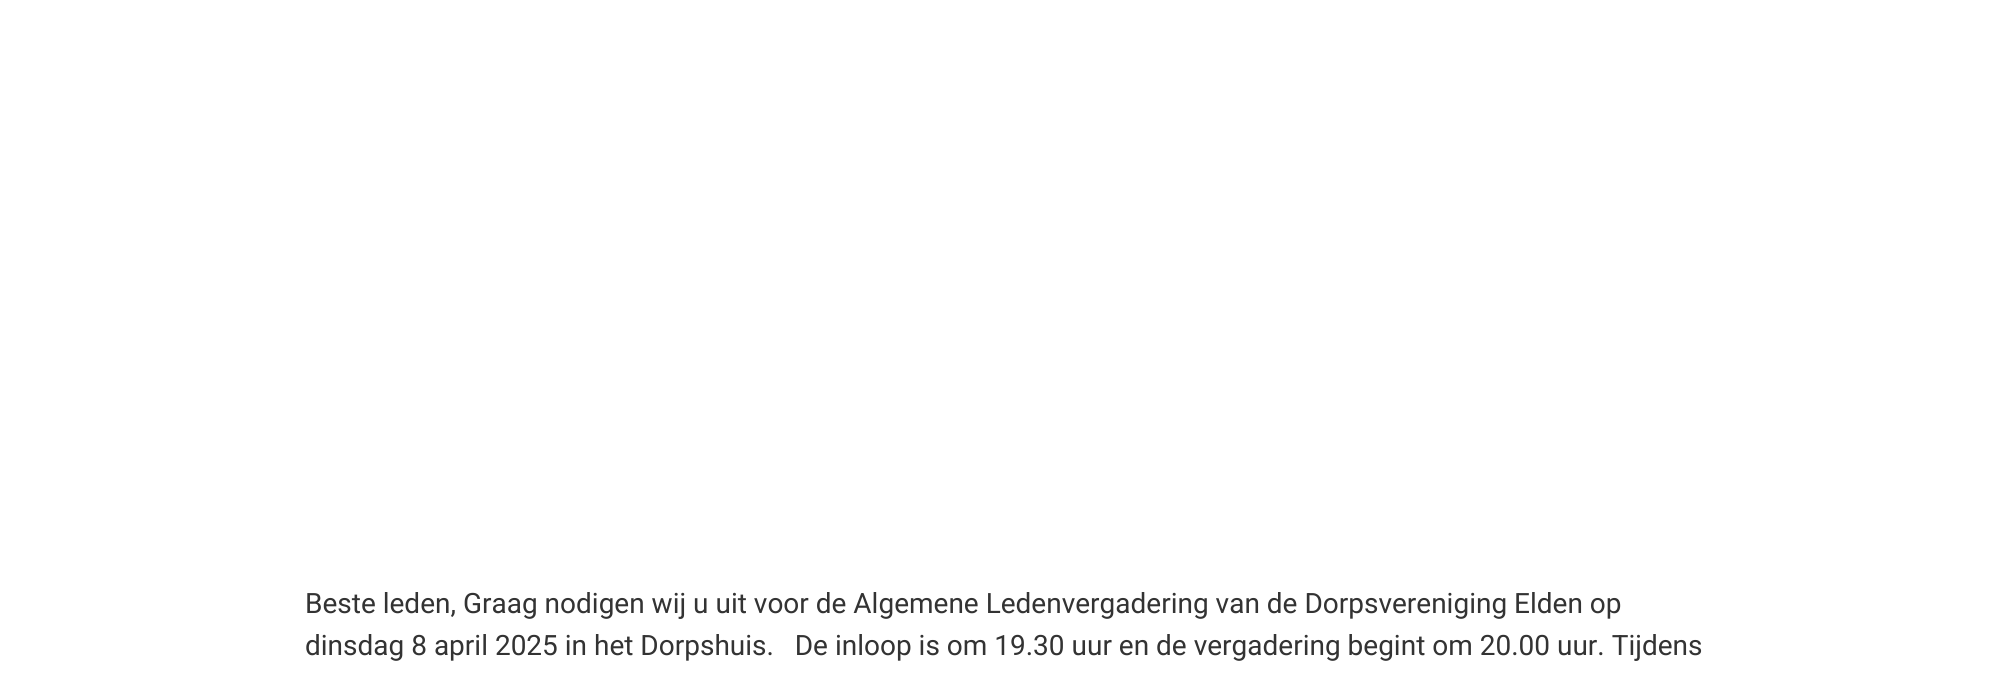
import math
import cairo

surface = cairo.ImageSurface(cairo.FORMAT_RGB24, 2009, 673)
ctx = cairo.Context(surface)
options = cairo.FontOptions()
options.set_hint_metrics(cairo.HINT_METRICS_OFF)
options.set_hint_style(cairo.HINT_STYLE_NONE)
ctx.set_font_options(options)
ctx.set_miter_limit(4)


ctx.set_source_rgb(1, 1, 1)
ctx.paint()
ctx.select_font_face("Roboto")
ctx.set_font_size(28)
ctx.set_source_rgb(0.2, 0.2, 0.2)
ctx.move_to(305, 613)
ctx.show_text("Beste leden, Graag nodigen wij u uit voor de Algemene Ledenvergadering van de Dorpsvereniging Elden op")
ctx.move_to(305, 655)
ctx.show_text("dinsdag 8 april 2025 in het Dorpshuis.   De inloop is om 19.30 uur en de vergadering begint om 20.00 uur. Tijdens")
surface.write_to_png("page.png")
